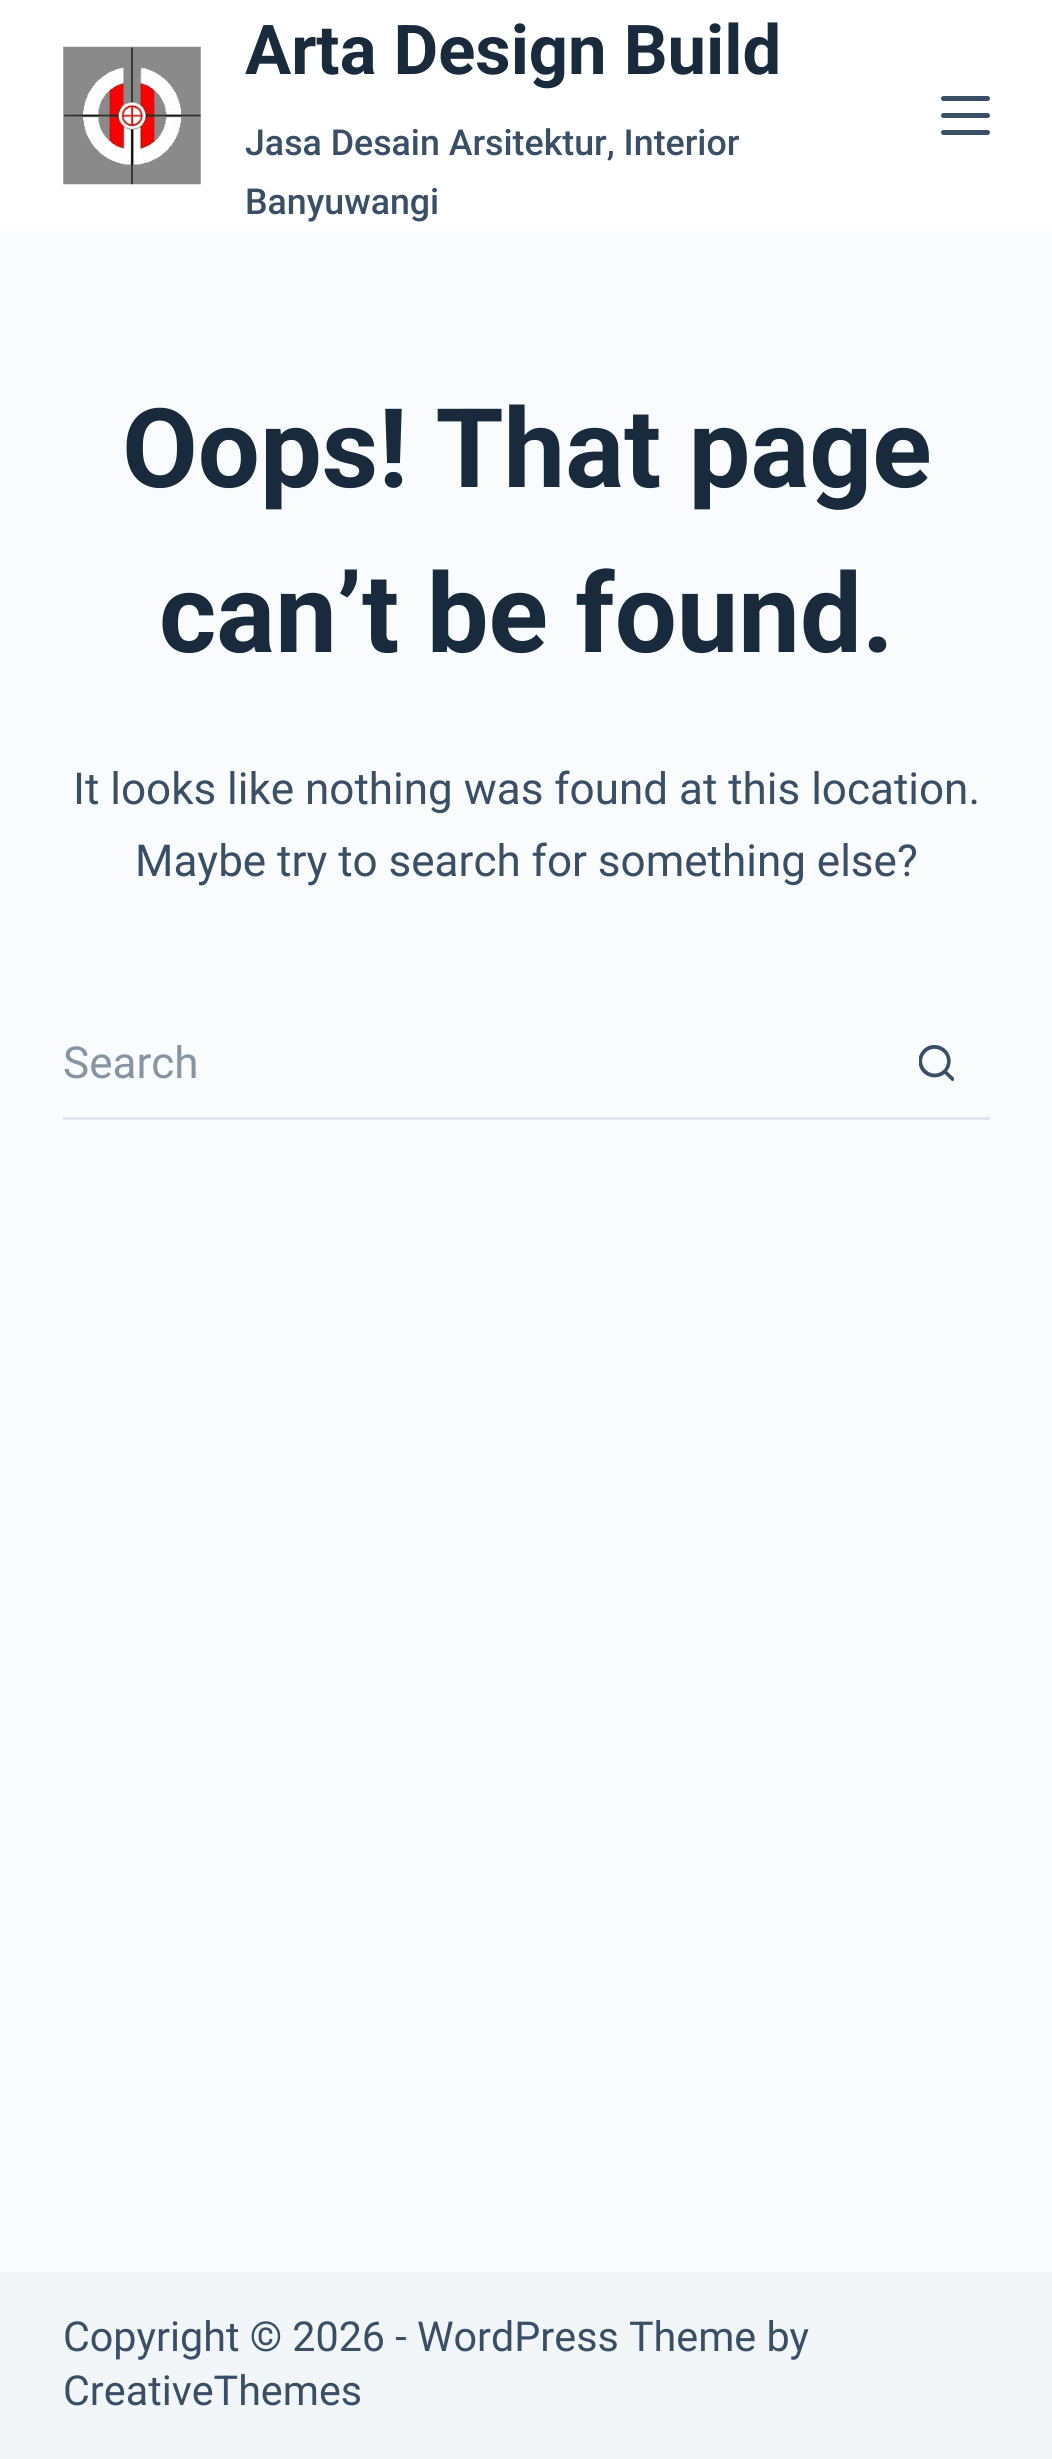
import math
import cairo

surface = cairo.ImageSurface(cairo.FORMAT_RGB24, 1052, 2459)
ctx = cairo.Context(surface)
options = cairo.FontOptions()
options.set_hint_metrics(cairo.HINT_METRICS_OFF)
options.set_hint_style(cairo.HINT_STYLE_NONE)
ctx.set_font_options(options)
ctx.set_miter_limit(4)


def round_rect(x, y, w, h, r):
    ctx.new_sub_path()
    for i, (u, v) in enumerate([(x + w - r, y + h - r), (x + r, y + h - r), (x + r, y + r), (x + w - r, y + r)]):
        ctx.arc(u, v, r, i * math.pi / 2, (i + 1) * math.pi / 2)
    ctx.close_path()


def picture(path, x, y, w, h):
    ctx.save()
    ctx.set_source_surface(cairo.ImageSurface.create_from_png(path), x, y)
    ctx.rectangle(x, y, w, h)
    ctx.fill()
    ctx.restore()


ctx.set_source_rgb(0.98, 0.984, 0.988)
ctx.paint()
ctx.set_source_rgb(1, 1, 1)
ctx.rectangle(0, 0, 1052, 231)
ctx.fill()
picture("img1.png", 63, 46, 138, 139)
ctx.select_font_face("Roboto", cairo.FONT_SLANT_NORMAL, cairo.FONT_WEIGHT_BOLD)
ctx.set_font_size(68.75)
ctx.set_source_rgb(0.098, 0.165, 0.239)
ctx.move_to(245, 74)
ctx.show_text("Arta Design Build")
ctx.select_font_face("Roboto Medium")
ctx.set_font_size(35.75)
ctx.set_source_rgb(0.227, 0.31, 0.4)
ctx.move_to(245, 155)
ctx.show_text("Jasa Desain Arsitektur, Interior")
ctx.move_to(245, 214)
ctx.show_text("Banyuwangi")
round_rect(941, 96, 49, 5, 2.5)
ctx.fill()
round_rect(941, 113, 49, 5, 2.5)
ctx.fill()
round_rect(941, 130, 49, 5, 2.5)
ctx.fill()
ctx.select_font_face("Roboto", cairo.FONT_SLANT_NORMAL, cairo.FONT_WEIGHT_BOLD)
ctx.set_font_size(110)
ctx.set_source_rgb(0.098, 0.165, 0.239)
ctx.move_to(122, 487)
ctx.show_text("Oops! That page")
ctx.move_to(159, 652)
ctx.show_text("can’t be found.")
ctx.select_font_face("Roboto")
ctx.set_font_size(44)
ctx.set_source_rgb(0.227, 0.31, 0.4)
ctx.move_to(73, 804)
ctx.show_text("It looks like nothing was found at this location.")
ctx.move_to(135, 876)
ctx.show_text("Maybe try to search for something else?")
ctx.set_source_rgb(0.882, 0.91, 0.929)
ctx.rectangle(63, 1117, 927, 3)
ctx.fill()
ctx.set_source_rgb(0.529, 0.58, 0.635)
ctx.move_to(63, 1078)
ctx.show_text("Search")
picture("img2.png", 919, 1045, 35, 36)
ctx.set_source_rgb(0.949, 0.961, 0.969)
ctx.rectangle(0, 2272, 1052, 187)
ctx.fill()
ctx.set_font_size(41.25)
ctx.set_source_rgb(0.227, 0.31, 0.4)
ctx.move_to(63, 2351)
ctx.show_text("Copyright © 2026 - WordPress Theme by")
ctx.move_to(63, 2405)
ctx.show_text("CreativeThemes")
surface.write_to_png("page.png")
